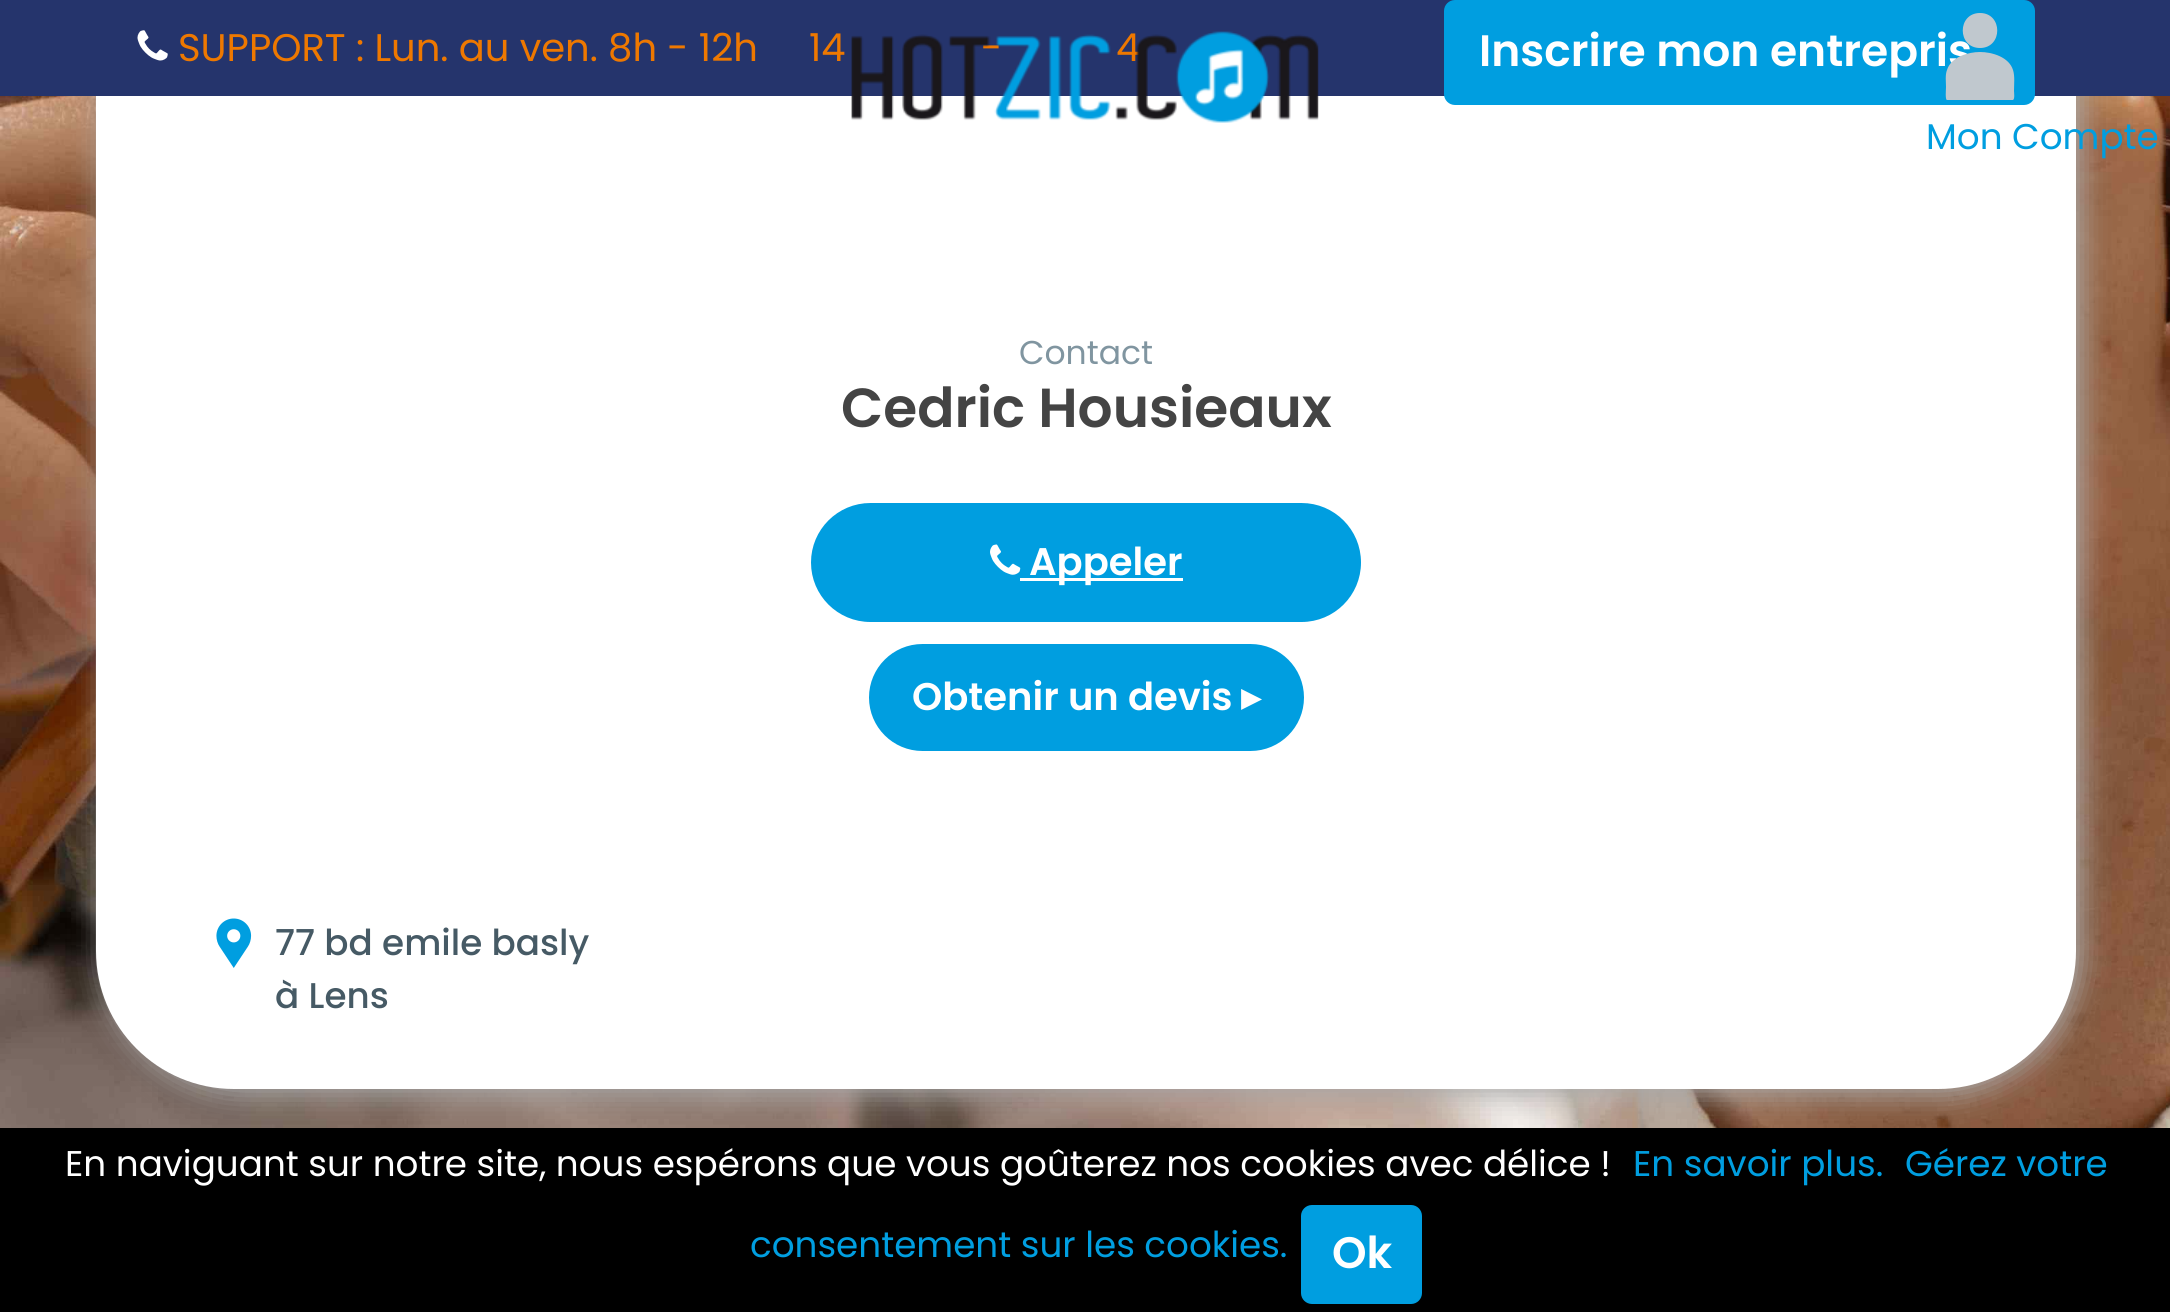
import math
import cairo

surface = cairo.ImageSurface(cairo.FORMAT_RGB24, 2170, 1312)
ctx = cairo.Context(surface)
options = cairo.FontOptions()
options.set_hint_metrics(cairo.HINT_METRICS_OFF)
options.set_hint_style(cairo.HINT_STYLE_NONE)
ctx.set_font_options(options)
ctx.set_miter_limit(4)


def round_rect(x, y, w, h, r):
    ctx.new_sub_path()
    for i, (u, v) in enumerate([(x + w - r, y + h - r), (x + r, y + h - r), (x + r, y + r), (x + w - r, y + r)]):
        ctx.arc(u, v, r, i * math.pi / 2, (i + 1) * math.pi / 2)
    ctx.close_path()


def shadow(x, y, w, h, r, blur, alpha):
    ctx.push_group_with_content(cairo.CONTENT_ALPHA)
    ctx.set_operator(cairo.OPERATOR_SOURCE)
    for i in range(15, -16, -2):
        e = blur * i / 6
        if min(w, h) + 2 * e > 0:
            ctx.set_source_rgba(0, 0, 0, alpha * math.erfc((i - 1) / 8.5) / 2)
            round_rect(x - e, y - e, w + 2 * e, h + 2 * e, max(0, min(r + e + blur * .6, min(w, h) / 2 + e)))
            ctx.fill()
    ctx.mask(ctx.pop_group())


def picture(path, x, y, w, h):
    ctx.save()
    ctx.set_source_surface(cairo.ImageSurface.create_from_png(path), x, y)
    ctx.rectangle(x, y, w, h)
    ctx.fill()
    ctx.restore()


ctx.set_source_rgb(1, 1, 1)
ctx.paint()
picture("img3.png", 0, 96, 2170, 1032)
ctx.set_source_rgb(0.667, 0.667, 0.667)
shadow(102, -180, 1980, 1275, 138, 14, 1)
ctx.set_source_rgb(1, 1, 1)
round_rect(96, -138, 1980, 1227, 138)
ctx.fill()
ctx.set_source_rgb(0.145, 0.204, 0.424)
ctx.rectangle(0, 0, 2170, 96)
ctx.fill()
picture("img1.png", 137, 30, 31, 31)
ctx.select_font_face("Poppins")
ctx.set_font_size(38.5)
ctx.set_source_rgb(0.933, 0.471, 0)
ctx.move_to(178, 61)
ctx.show_text("SUPPORT : Lun. au ven. 8h - 12h")
ctx.move_to(809, 61)
ctx.show_text("14")
ctx.move_to(981, 61)
ctx.show_text("-")
ctx.move_to(1116, 61)
ctx.show_text("4")
ctx.set_source_rgb(0, 0.62, 0.878)
round_rect(1445.5, 1.5, 588, 102, 9.5)
ctx.fill_preserve()
ctx.set_line_width(3)
ctx.stroke()
ctx.select_font_face("Poppins SemiBold")
ctx.set_font_size(44)
ctx.set_source_rgb(1, 1, 1)
ctx.move_to(1479, 66)
ctx.show_text("Inscrire mon entrepris")
picture("img2.png", 851, 31, 468, 92)
ctx.select_font_face("Poppins")
ctx.set_font_size(35.75)
ctx.set_source_rgb(0, 0.62, 0.878)
ctx.move_to(1926, 149)
ctx.show_text("Mon Compte")
ctx.set_source_rgb(0.753, 0.784, 0.808)
ctx.new_path()
ctx.move_to(1980, 13)
ctx.curve_to(1957, 13, 1957, 48, 1980, 48)
ctx.curve_to(2003, 48, 2003, 13, 1980, 13)
ctx.close_path()
ctx.move_to(1980, 52)
ctx.curve_to(1968, 52, 1951, 57, 1947, 70)
ctx.curve_to(1945, 75, 1946, 82, 1946, 87)
ctx.curve_to(1946, 89, 1945, 100, 1947, 100)
ctx.line_to(2013, 100)
ctx.curve_to(2015, 99, 2014, 92, 2014, 91)
ctx.curve_to(2014, 85, 2015, 76, 2013, 70)
ctx.curve_to(2009, 57, 1992, 52, 1980, 52)
ctx.close_path()
ctx.fill()
ctx.set_font_size(33)
ctx.set_source_rgb(0.502, 0.584, 0.627)
ctx.move_to(1019, 364)
ctx.show_text("Contact")
ctx.select_font_face("Poppins SemiBold")
ctx.set_font_size(55)
ctx.set_source_rgb(0.267, 0.267, 0.267)
ctx.move_to(841, 427)
ctx.show_text("Cedric Housieaux")
ctx.set_source_rgb(0, 0.62, 0.878)
round_rect(812.5, 504.5, 547, 116, 58)
ctx.fill_preserve()
ctx.stroke()
picture("img4.png", 990, 544, 31, 31)
ctx.set_source_rgb(1, 1, 1)
ctx.rectangle(1020, 578, 163, 3)
ctx.fill()
ctx.set_font_size(38.5)
ctx.move_to(1029, 575)
ctx.show_text("Appeler")
ctx.set_source_rgb(0, 0.62, 0.878)
round_rect(870.5, 645.5, 432, 104, 52)
ctx.fill_preserve()
ctx.stroke()
ctx.set_source_rgb(1, 1, 1)
ctx.move_to(912, 710)
ctx.show_text("Obtenir un devis")
ctx.select_font_face("DejaVu Sans", cairo.FONT_SLANT_NORMAL, cairo.FONT_WEIGHT_BOLD)
ctx.move_to(1241, 710)
ctx.show_text("▸")
picture("img5.png", 216, 918, 36, 50)
ctx.select_font_face("Poppins Medium")
ctx.set_font_size(35.75)
ctx.set_source_rgb(0.275, 0.353, 0.396)
ctx.move_to(275, 955)
ctx.show_text("77 bd emile basly")
ctx.move_to(275, 1008)
ctx.show_text("à Lens")
ctx.set_source_rgb(0, 0, 0)
ctx.rectangle(0, 1128, 2170, 184)
ctx.fill()
ctx.select_font_face("Poppins")
ctx.set_source_rgb(1, 1, 1)
ctx.move_to(65, 1176)
ctx.show_text("En naviguant sur notre site, nous espérons que vous goûterez nos cookies avec délice !")
ctx.set_source_rgb(0, 0.62, 0.878)
ctx.move_to(1633, 1176)
ctx.show_text("En savoir plus.")
ctx.move_to(1905, 1176)
ctx.show_text("Gérez votre")
ctx.move_to(750, 1257)
ctx.show_text("consentement sur les cookies.")
round_rect(1302.5, 1206.5, 118, 96, 9.5)
ctx.fill_preserve()
ctx.stroke()
ctx.select_font_face("Poppins SemiBold")
ctx.set_font_size(44)
ctx.set_source_rgb(1, 1, 1)
ctx.move_to(1332, 1268)
ctx.show_text("Ok")
surface.write_to_png("page.png")
